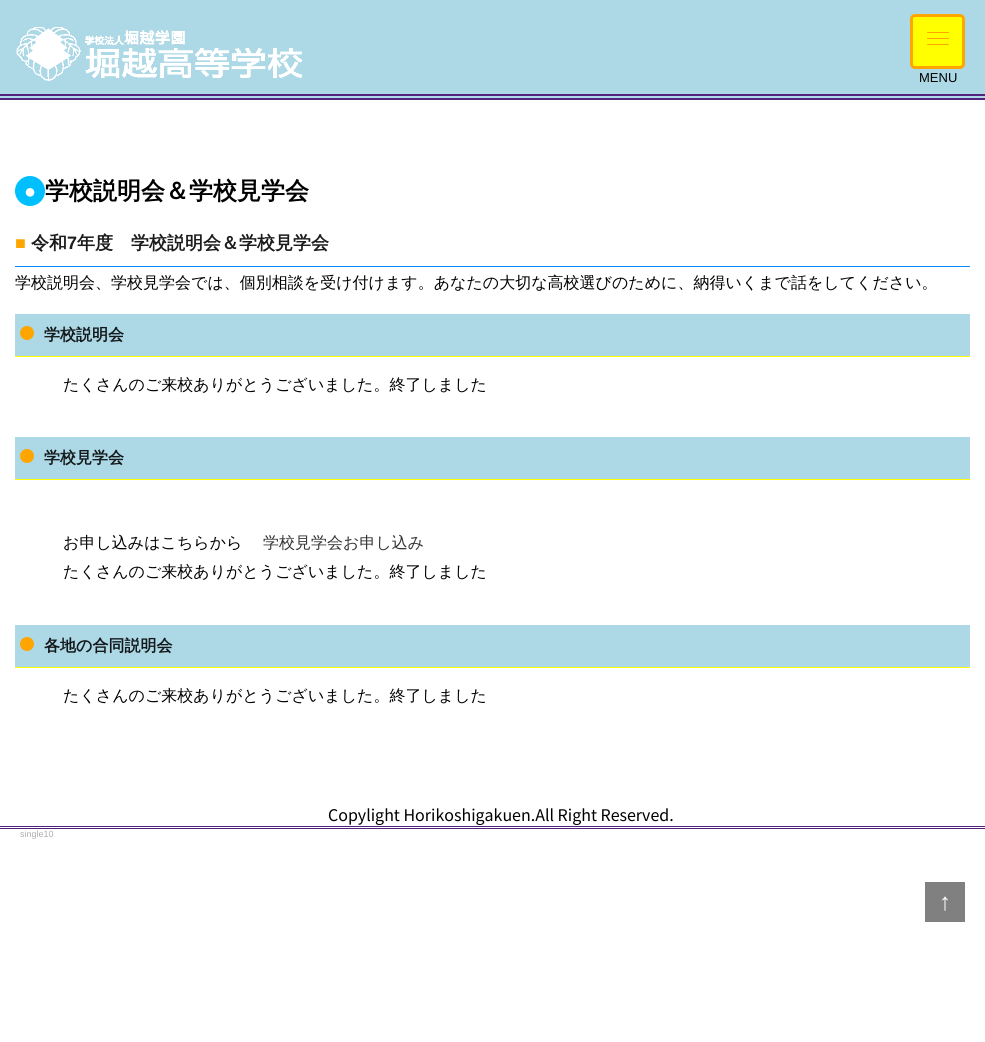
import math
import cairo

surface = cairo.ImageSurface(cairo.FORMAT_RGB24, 985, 1042)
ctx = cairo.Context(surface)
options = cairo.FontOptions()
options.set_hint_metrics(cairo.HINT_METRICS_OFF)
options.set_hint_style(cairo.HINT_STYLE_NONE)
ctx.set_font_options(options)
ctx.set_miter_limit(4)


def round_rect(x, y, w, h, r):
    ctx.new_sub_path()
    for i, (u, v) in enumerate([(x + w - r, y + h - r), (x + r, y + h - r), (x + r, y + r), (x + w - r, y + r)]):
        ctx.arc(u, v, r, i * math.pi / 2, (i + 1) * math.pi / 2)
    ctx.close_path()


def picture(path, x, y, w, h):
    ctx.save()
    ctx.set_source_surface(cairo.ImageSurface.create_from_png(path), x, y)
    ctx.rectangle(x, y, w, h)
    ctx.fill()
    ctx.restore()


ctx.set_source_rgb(1, 1, 1)
ctx.paint()
ctx.set_source_rgb(0.678, 0.847, 0.902)
ctx.rectangle(0, 0, 985, 98)
ctx.fill()
ctx.set_source_rgb(0.314, 0.129, 0.49)
ctx.rectangle(0, 94, 985, 2)
ctx.fill()
ctx.rectangle(0, 98, 985, 2)
ctx.fill()
picture("img1.png", 16, 27, 287, 54)
ctx.set_source_rgb(1, 1, 0)
round_rect(911.5, 15.5, 52, 52, 3.5)
ctx.fill_preserve()
ctx.set_source_rgb(1, 0.647, 0)
ctx.set_line_width(3)
ctx.stroke()
round_rect(927, 32, 22, 1, 0.5)
ctx.fill()
round_rect(927, 38, 22, 1, 0.5)
ctx.fill()
round_rect(927, 44, 22, 1, 0.5)
ctx.fill()
ctx.select_font_face("Liberation Sans")
ctx.set_font_size(13)
ctx.set_source_rgb(0, 0, 0)
ctx.move_to(919, 82)
ctx.show_text("MENU")
ctx.set_source_rgb(0, 0.749, 1)
ctx.new_path()
ctx.arc(30, 191, 15, 0, 2 * math.pi)
ctx.fill()
ctx.select_font_face("Liberation Sans", cairo.FONT_SLANT_NORMAL, cairo.FONT_WEIGHT_BOLD)
ctx.set_font_size(20)
ctx.set_source_rgb(1, 1, 1)
ctx.move_to(24, 198)
ctx.show_text("●")
ctx.select_font_face("WenQuanYi Zen Hei", cairo.FONT_SLANT_NORMAL, cairo.FONT_WEIGHT_BOLD)
ctx.set_font_size(24)
ctx.set_source_rgb(0, 0, 0)
ctx.move_to(45, 199)
ctx.show_text("学校説明会＆学校見学会")
ctx.set_source_rgb(0, 0.549, 1)
ctx.rectangle(15, 266, 955, 1)
ctx.fill()
ctx.select_font_face("Liberation Sans", cairo.FONT_SLANT_NORMAL, cairo.FONT_WEIGHT_BOLD)
ctx.set_font_size(18)
ctx.set_source_rgb(1, 0.647, 0)
ctx.move_to(15, 249)
ctx.show_text("■")
ctx.select_font_face("WenQuanYi Zen Hei", cairo.FONT_SLANT_NORMAL, cairo.FONT_WEIGHT_BOLD)
ctx.set_source_rgb(0.11, 0.11, 0.11)
ctx.move_to(31, 249)
ctx.show_text("令和")
ctx.select_font_face("Liberation Sans", cairo.FONT_SLANT_NORMAL, cairo.FONT_WEIGHT_BOLD)
ctx.move_to(67, 249)
ctx.show_text("7")
ctx.select_font_face("WenQuanYi Zen Hei", cairo.FONT_SLANT_NORMAL, cairo.FONT_WEIGHT_BOLD)
ctx.move_to(77, 249)
ctx.show_text("年度　学校説明会＆学校見学会")
ctx.select_font_face("WenQuanYi Zen Hei Medium")
ctx.set_font_size(16)
ctx.set_source_rgb(0, 0, 0)
ctx.move_to(15, 288)
ctx.show_text("学校説明会、学校見学会では、個別相談を受け付けます。あなたの大切な高校選びのために、納得いくまで話をしてください。")
ctx.set_source_rgb(0.678, 0.847, 0.902)
ctx.rectangle(15, 314, 955, 42)
ctx.fill()
ctx.set_source_rgb(1, 1, 0)
ctx.rectangle(15, 356, 955, 1)
ctx.fill()
ctx.set_source_rgb(1, 0.647, 0)
ctx.arc(27, 333, 7, 0, 2 * math.pi)
ctx.fill()
ctx.select_font_face("WenQuanYi Zen Hei", cairo.FONT_SLANT_NORMAL, cairo.FONT_WEIGHT_BOLD)
ctx.set_source_rgb(0.078, 0.094, 0.102)
ctx.move_to(44, 340)
ctx.show_text("学校説明会")
ctx.select_font_face("WenQuanYi Zen Hei Medium")
ctx.set_source_rgb(0, 0, 0)
ctx.move_to(63, 390)
ctx.show_text("たくさんのご来校ありがとうございました。終了しました")
ctx.set_source_rgb(0.678, 0.847, 0.902)
ctx.rectangle(15, 437, 955, 42)
ctx.fill()
ctx.set_source_rgb(1, 1, 0)
ctx.rectangle(15, 479, 955, 1)
ctx.fill()
ctx.set_source_rgb(1, 0.647, 0)
ctx.arc(27, 456, 7, 0, 2 * math.pi)
ctx.fill()
ctx.select_font_face("WenQuanYi Zen Hei", cairo.FONT_SLANT_NORMAL, cairo.FONT_WEIGHT_BOLD)
ctx.set_source_rgb(0.078, 0.094, 0.102)
ctx.move_to(44, 463)
ctx.show_text("学校見学会")
ctx.select_font_face("WenQuanYi Zen Hei Medium")
ctx.set_source_rgb(0, 0, 0)
ctx.move_to(63, 548)
ctx.show_text("お申し込みはこちらから")
ctx.set_source_rgb(0.2, 0.2, 0.2)
ctx.move_to(263, 548)
ctx.show_text("学校見学会お申し込み")
ctx.set_source_rgb(0, 0, 0)
ctx.move_to(63, 577)
ctx.show_text("たくさんのご来校ありがとうございました。終了しました")
ctx.set_source_rgb(0.678, 0.847, 0.902)
ctx.rectangle(15, 625, 955, 42)
ctx.fill()
ctx.set_source_rgb(1, 1, 0)
ctx.rectangle(15, 667, 955, 1)
ctx.fill()
ctx.set_source_rgb(1, 0.647, 0)
ctx.arc(27, 644, 7, 0, 2 * math.pi)
ctx.fill()
ctx.select_font_face("WenQuanYi Zen Hei", cairo.FONT_SLANT_NORMAL, cairo.FONT_WEIGHT_BOLD)
ctx.set_source_rgb(0.078, 0.094, 0.102)
ctx.move_to(44, 651)
ctx.show_text("各地の合同説明会")
ctx.select_font_face("WenQuanYi Zen Hei Medium")
ctx.set_source_rgb(0, 0, 0)
ctx.move_to(63, 701)
ctx.show_text("たくさんのご来校ありがとうございました。終了しました")
ctx.set_source_rgb(0.314, 0.129, 0.49)
ctx.rectangle(0, 826, 985, 1)
ctx.fill()
ctx.rectangle(0, 828, 985, 1)
ctx.fill()
ctx.select_font_face("Noto Sans JP")
ctx.set_source_rgb(0, 0, 0)
ctx.move_to(328, 821)
ctx.show_text("Copylight Horikoshigakuen.All Right Reserved.")
ctx.select_font_face("Liberation Sans")
ctx.set_font_size(9)
ctx.set_source_rgb(0.682, 0.682, 0.682)
ctx.move_to(20, 837)
ctx.show_text("single10")
ctx.set_source_rgb(0.502, 0.502, 0.502)
ctx.rectangle(925, 882, 40, 40)
ctx.fill()
ctx.set_font_size(24)
ctx.set_source_rgb(1, 1, 1)
ctx.move_to(939, 910)
ctx.show_text("↑")
surface.write_to_png("page.png")
